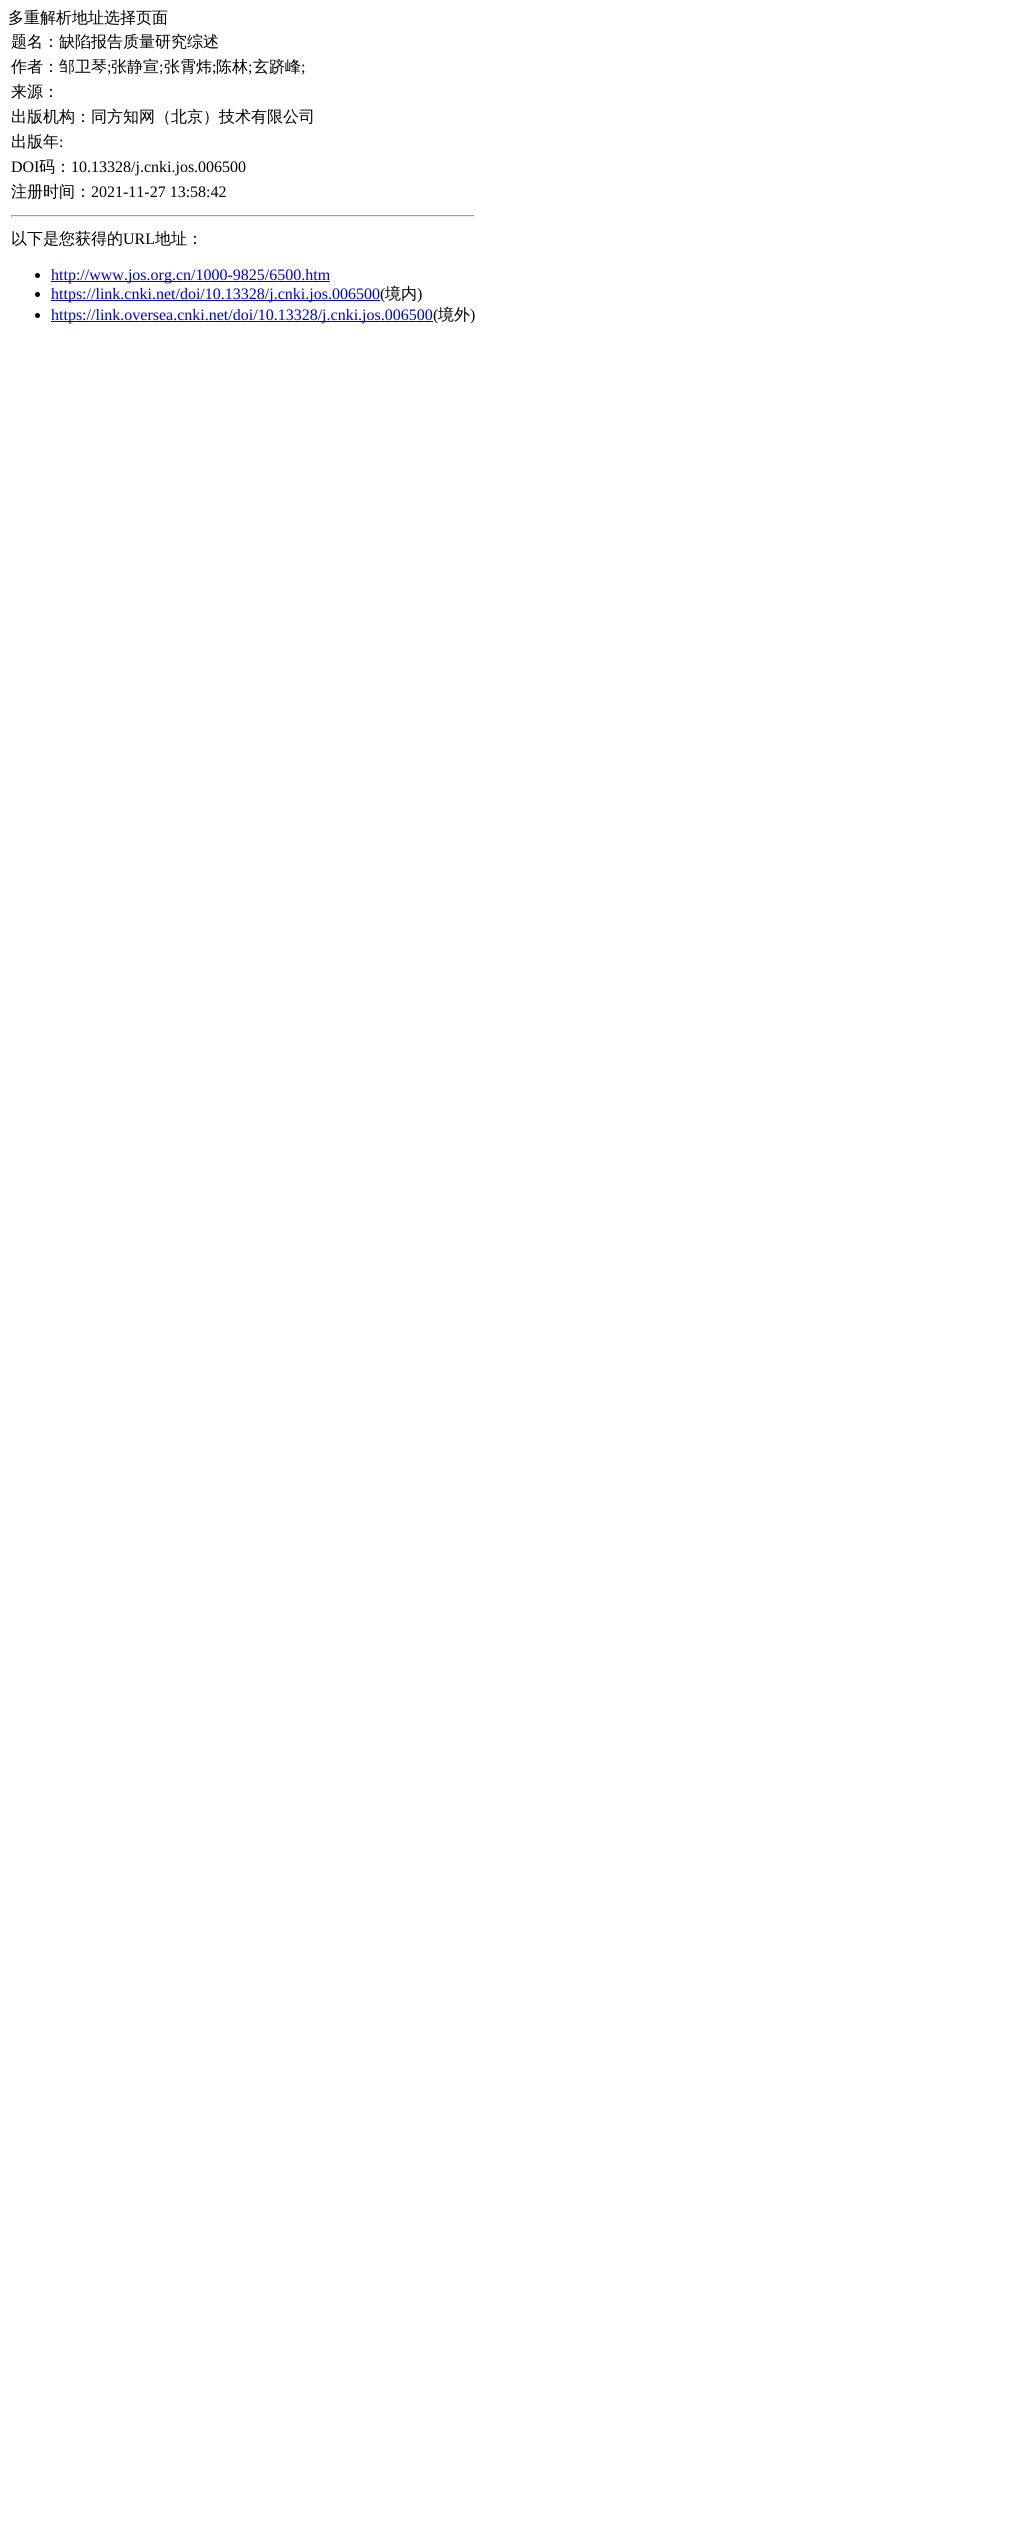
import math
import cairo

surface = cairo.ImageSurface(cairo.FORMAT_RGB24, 1021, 2535)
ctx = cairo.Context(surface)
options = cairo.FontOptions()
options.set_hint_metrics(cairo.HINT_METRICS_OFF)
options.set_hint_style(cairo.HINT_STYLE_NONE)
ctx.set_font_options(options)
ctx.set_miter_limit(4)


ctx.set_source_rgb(1, 1, 1)
ctx.paint()
ctx.select_font_face("WenQuanYi Zen Hei Medium")
ctx.set_font_size(16)
ctx.set_source_rgb(0, 0, 0)
ctx.move_to(8, 23)
ctx.show_text("多重解析地址选择页面")
ctx.move_to(11, 47)
ctx.show_text("题名：缺陷报告质量研究综述")
ctx.move_to(11, 72)
ctx.show_text("作者：邹卫琴")
ctx.select_font_face("Liberation Serif")
ctx.move_to(107, 72)
ctx.show_text(";")
ctx.select_font_face("WenQuanYi Zen Hei Medium")
ctx.move_to(111, 72)
ctx.show_text("张静宣")
ctx.select_font_face("Liberation Serif")
ctx.move_to(159, 72)
ctx.show_text(";")
ctx.select_font_face("WenQuanYi Zen Hei Medium")
ctx.move_to(164, 72)
ctx.show_text("张霄炜")
ctx.select_font_face("Liberation Serif")
ctx.move_to(212, 72)
ctx.show_text(";")
ctx.select_font_face("WenQuanYi Zen Hei Medium")
ctx.move_to(216, 72)
ctx.show_text("陈林")
ctx.select_font_face("Liberation Serif")
ctx.move_to(248, 72)
ctx.show_text(";")
ctx.select_font_face("WenQuanYi Zen Hei Medium")
ctx.move_to(253, 72)
ctx.show_text("玄跻峰")
ctx.select_font_face("Liberation Serif")
ctx.move_to(301, 72)
ctx.show_text(";")
ctx.select_font_face("WenQuanYi Zen Hei Medium")
ctx.move_to(11, 97)
ctx.show_text("来源：")
ctx.move_to(11, 122)
ctx.show_text("出版机构：同方知网（北京）技术有限公司")
ctx.move_to(11, 147)
ctx.show_text("出版年")
ctx.select_font_face("Liberation Serif")
ctx.move_to(59, 147)
ctx.show_text(":")
ctx.move_to(11, 172)
ctx.show_text("DOI")
ctx.select_font_face("WenQuanYi Zen Hei Medium")
ctx.move_to(39, 172)
ctx.show_text("码：")
ctx.select_font_face("Liberation Serif")
ctx.move_to(71, 172)
ctx.show_text("10.13328/j.cnki.jos.006500")
ctx.select_font_face("WenQuanYi Zen Hei Medium")
ctx.move_to(11, 197)
ctx.show_text("注册时间：")
ctx.select_font_face("Liberation Serif")
ctx.move_to(91, 197)
ctx.show_text("2021-11-27 13:58:42")
ctx.set_source_rgb(0.624, 0.624, 0.624)
ctx.rectangle(11, 215, 464, 1)
ctx.fill()
ctx.set_source_rgb(0.933, 0.933, 0.933)
ctx.rectangle(474, 215, 1, 2)
ctx.fill()
ctx.rectangle(11, 216, 464, 1)
ctx.fill()
ctx.set_source_rgb(0.624, 0.624, 0.624)
ctx.rectangle(11, 215, 1, 2)
ctx.fill()
ctx.select_font_face("WenQuanYi Zen Hei Medium")
ctx.set_source_rgb(0, 0, 0)
ctx.move_to(11, 244)
ctx.show_text("以下是您获得的")
ctx.select_font_face("Liberation Serif")
ctx.move_to(123, 244)
ctx.show_text("URL")
ctx.select_font_face("WenQuanYi Zen Hei Medium")
ctx.move_to(155, 244)
ctx.show_text("地址：")
ctx.new_path()
ctx.arc(37.5, 275.5, 2.5, 0, 2 * math.pi)
ctx.fill()
ctx.set_source_rgb(0, 0, 0.933)
ctx.rectangle(51, 281, 279, 1)
ctx.fill()
ctx.select_font_face("Liberation Serif")
ctx.move_to(51, 280)
ctx.show_text("http://www.jos.org.cn/1000-9825/6500.htm")
ctx.set_source_rgb(0, 0, 0)
ctx.new_path()
ctx.arc(37.5, 294.5, 2.5, 0, 2 * math.pi)
ctx.fill()
ctx.set_source_rgb(0, 0, 0.933)
ctx.rectangle(51, 300, 329, 1)
ctx.fill()
ctx.move_to(51, 299)
ctx.show_text("https://link.cnki.net/doi/10.13328/j.cnki.jos.006500")
ctx.set_source_rgb(0, 0, 0)
ctx.move_to(380, 299)
ctx.show_text("(")
ctx.select_font_face("WenQuanYi Zen Hei Medium")
ctx.move_to(385, 299)
ctx.show_text("境内")
ctx.select_font_face("Liberation Serif")
ctx.move_to(417, 299)
ctx.show_text(")")
ctx.new_path()
ctx.arc(37.5, 315.5, 2.5, 0, 2 * math.pi)
ctx.fill()
ctx.set_source_rgb(0, 0, 0.933)
ctx.rectangle(51, 321, 382, 1)
ctx.fill()
ctx.move_to(51, 320)
ctx.show_text("https://link.oversea.cnki.net/doi/10.13328/j.cnki.jos.006500")
ctx.set_source_rgb(0, 0, 0)
ctx.move_to(433, 320)
ctx.show_text("(")
ctx.select_font_face("WenQuanYi Zen Hei Medium")
ctx.move_to(438, 320)
ctx.show_text("境外")
ctx.select_font_face("Liberation Serif")
ctx.move_to(470, 320)
ctx.show_text(")")
surface.write_to_png("page.png")
